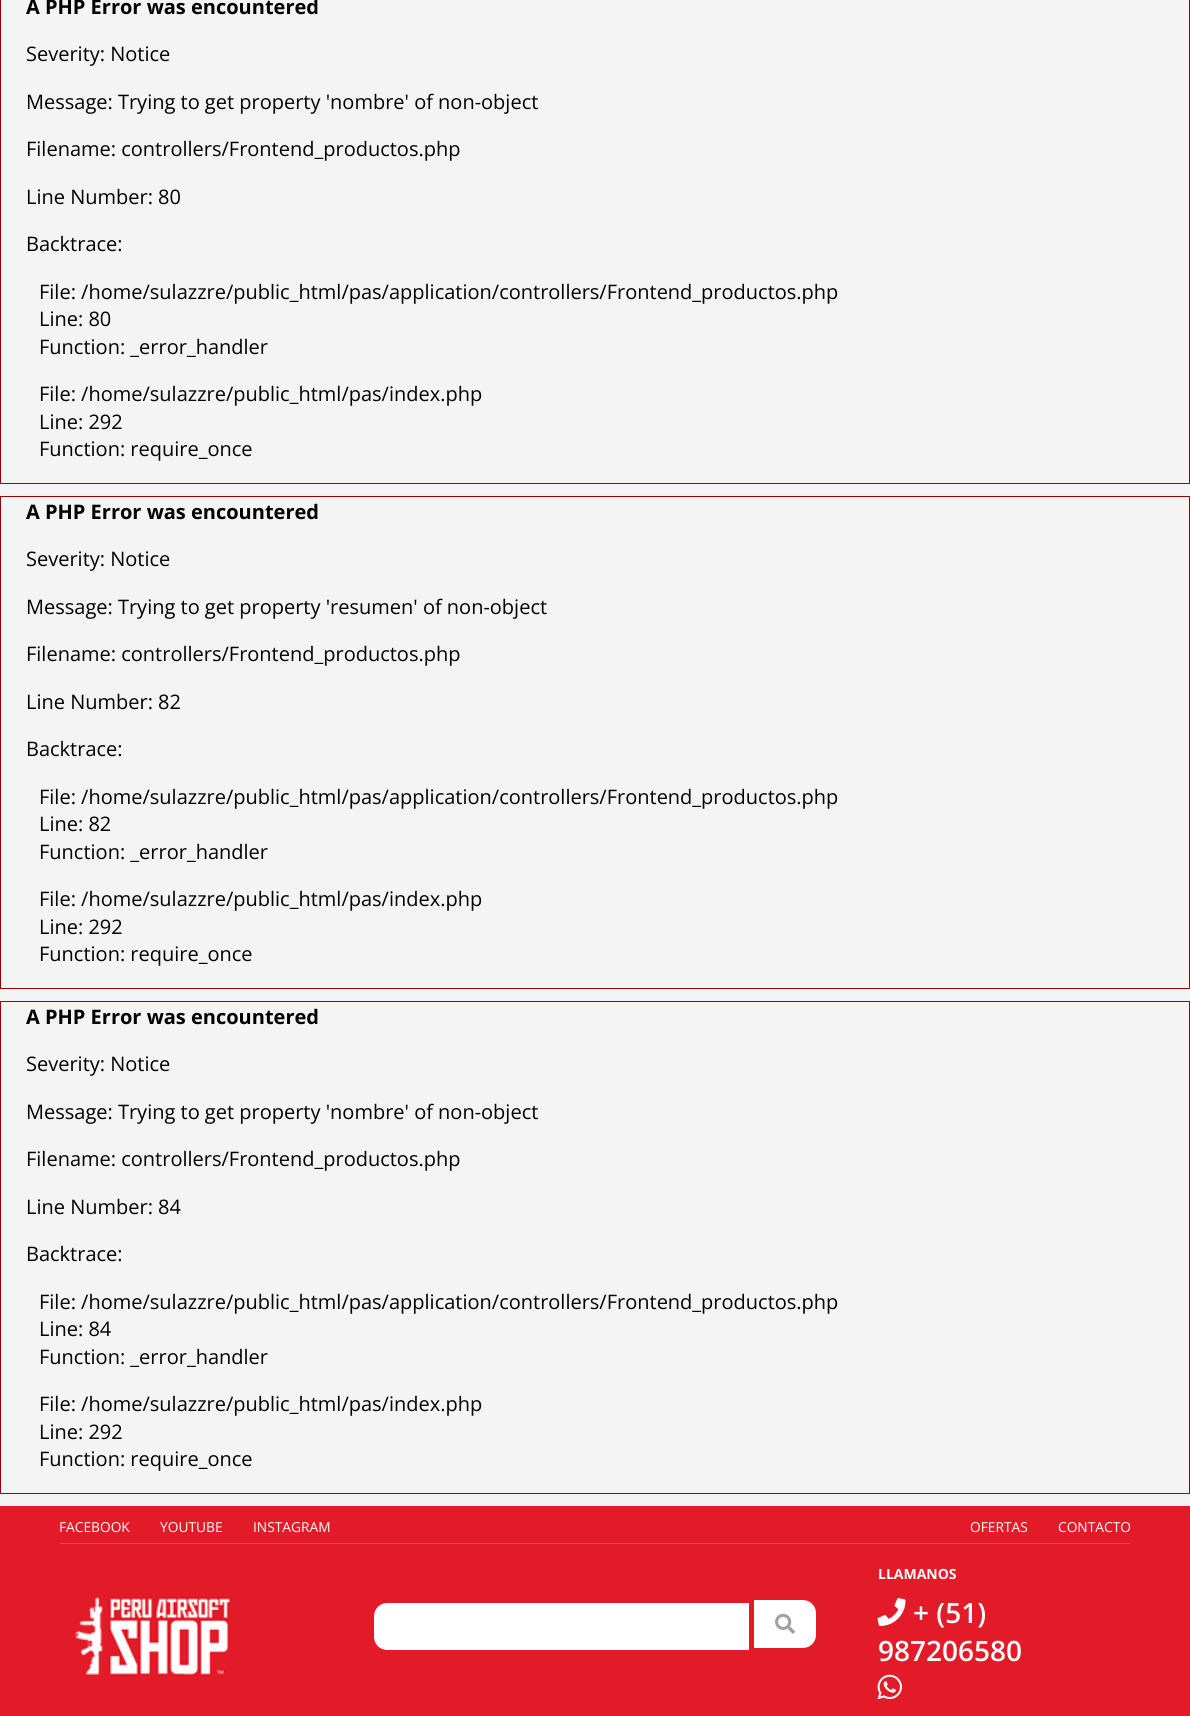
import math
import cairo

surface = cairo.ImageSurface(cairo.FORMAT_RGB24, 1190, 1716)
ctx = cairo.Context(surface)
options = cairo.FontOptions()
options.set_hint_metrics(cairo.HINT_METRICS_OFF)
options.set_hint_style(cairo.HINT_STYLE_NONE)
ctx.set_font_options(options)
ctx.set_miter_limit(4)


def picture(path, x, y, w, h):
    ctx.save()
    ctx.set_source_surface(cairo.ImageSurface.create_from_png(path), x, y)
    ctx.rectangle(x, y, w, h)
    ctx.fill()
    ctx.restore()


ctx.set_source_rgb(0.957, 0.957, 0.957)
ctx.paint()
ctx.rectangle(0.5, -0.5, 1189, 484)
ctx.set_source_rgb(0.6, 0, 0)
ctx.set_line_width(1)
ctx.stroke()
ctx.select_font_face("Open Sans", cairo.FONT_SLANT_NORMAL, cairo.FONT_WEIGHT_BOLD)
ctx.set_font_size(20)
ctx.set_source_rgb(0, 0, 0)
ctx.move_to(26, 14)
ctx.show_text("A PHP Error was encountered")
ctx.select_font_face("Open Sans")
ctx.move_to(26, 61)
ctx.show_text("Severity: Notice")
ctx.move_to(26, 109)
ctx.show_text("Message: Trying to get property 'nombre' of non-object")
ctx.move_to(26, 156)
ctx.show_text("Filename: controllers/Frontend_productos.php")
ctx.move_to(26, 204)
ctx.show_text("Line Number: 80")
ctx.move_to(26, 251)
ctx.show_text("Backtrace:")
ctx.move_to(39, 299)
ctx.show_text("File: /home/sulazzre/public_html/pas/application/controllers/Frontend_productos.php")
ctx.move_to(39, 326)
ctx.show_text("Line: 80")
ctx.move_to(39, 354)
ctx.show_text("Function: _error_handler")
ctx.move_to(39, 401)
ctx.show_text("File: /home/sulazzre/public_html/pas/index.php")
ctx.move_to(39, 429)
ctx.show_text("Line: 292")
ctx.move_to(39, 456)
ctx.show_text("Function: require_once")
ctx.rectangle(0.5, 496.5, 1189, 492)
ctx.set_source_rgb(0.6, 0, 0)
ctx.stroke()
ctx.select_font_face("Open Sans", cairo.FONT_SLANT_NORMAL, cairo.FONT_WEIGHT_BOLD)
ctx.set_source_rgb(0, 0, 0)
ctx.move_to(26, 519)
ctx.show_text("A PHP Error was encountered")
ctx.select_font_face("Open Sans")
ctx.move_to(26, 566)
ctx.show_text("Severity: Notice")
ctx.move_to(26, 614)
ctx.show_text("Message: Trying to get property 'resumen' of non-object")
ctx.move_to(26, 661)
ctx.show_text("Filename: controllers/Frontend_productos.php")
ctx.move_to(26, 709)
ctx.show_text("Line Number: 82")
ctx.move_to(26, 756)
ctx.show_text("Backtrace:")
ctx.move_to(39, 804)
ctx.show_text("File: /home/sulazzre/public_html/pas/application/controllers/Frontend_productos.php")
ctx.move_to(39, 831)
ctx.show_text("Line: 82")
ctx.move_to(39, 859)
ctx.show_text("Function: _error_handler")
ctx.move_to(39, 906)
ctx.show_text("File: /home/sulazzre/public_html/pas/index.php")
ctx.move_to(39, 934)
ctx.show_text("Line: 292")
ctx.move_to(39, 961)
ctx.show_text("Function: require_once")
ctx.rectangle(0.5, 1001.5, 1189, 492)
ctx.set_source_rgb(0.6, 0, 0)
ctx.stroke()
ctx.select_font_face("Open Sans", cairo.FONT_SLANT_NORMAL, cairo.FONT_WEIGHT_BOLD)
ctx.set_source_rgb(0, 0, 0)
ctx.move_to(26, 1024)
ctx.show_text("A PHP Error was encountered")
ctx.select_font_face("Open Sans")
ctx.move_to(26, 1071)
ctx.show_text("Severity: Notice")
ctx.move_to(26, 1119)
ctx.show_text("Message: Trying to get property 'nombre' of non-object")
ctx.move_to(26, 1166)
ctx.show_text("Filename: controllers/Frontend_productos.php")
ctx.move_to(26, 1214)
ctx.show_text("Line Number: 84")
ctx.move_to(26, 1261)
ctx.show_text("Backtrace:")
ctx.move_to(39, 1309)
ctx.show_text("File: /home/sulazzre/public_html/pas/application/controllers/Frontend_productos.php")
ctx.move_to(39, 1336)
ctx.show_text("Line: 84")
ctx.move_to(39, 1364)
ctx.show_text("Function: _error_handler")
ctx.move_to(39, 1411)
ctx.show_text("File: /home/sulazzre/public_html/pas/index.php")
ctx.move_to(39, 1439)
ctx.show_text("Line: 292")
ctx.move_to(39, 1466)
ctx.show_text("Function: require_once")
ctx.set_source_rgb(0.89, 0.106, 0.161)
ctx.rectangle(0, 1506, 1190, 210)
ctx.fill()
ctx.set_source_rgb(0.906, 0.278, 0.322)
ctx.rectangle(60, 1543, 1070, 1)
ctx.fill()
ctx.set_font_size(13.75)
ctx.set_source_rgb(1, 1, 1)
ctx.move_to(59, 1532)
ctx.show_text("FACEBOOK")
ctx.move_to(160, 1532)
ctx.show_text("YOUTUBE")
ctx.move_to(253, 1532)
ctx.show_text("INSTAGRAM")
ctx.move_to(970, 1532)
ctx.show_text("OFERTAS")
ctx.move_to(1058, 1532)
ctx.show_text("CONTACTO")
picture("img1.png", 75, 1597, 157, 79)
ctx.new_path()
ctx.move_to(387, 1603)
ctx.line_to(749, 1603)
ctx.line_to(749, 1650)
ctx.line_to(387, 1650)
ctx.curve_to(380, 1650, 374, 1644, 374, 1637)
ctx.line_to(374, 1616)
ctx.curve_to(374, 1609, 380, 1603, 387, 1603)
ctx.close_path()
ctx.fill()
ctx.new_path()
ctx.move_to(754, 1600)
ctx.line_to(803, 1600)
ctx.curve_to(810, 1600, 816, 1606, 816, 1613)
ctx.line_to(816, 1635)
ctx.curve_to(816, 1642, 810, 1648, 803, 1648)
ctx.line_to(754, 1648)
ctx.close_path()
ctx.fill()
picture("img2.png", 775, 1613, 20, 21)
ctx.select_font_face("Open Sans", cairo.FONT_SLANT_NORMAL, cairo.FONT_WEIGHT_BOLD)
ctx.set_font_size(14)
ctx.move_to(878, 1579)
ctx.show_text("LLAMANOS")
picture("img3.png", 877, 1598, 29, 28)
ctx.select_font_face("Open Sans SemiBold")
ctx.set_font_size(28)
ctx.move_to(913, 1623)
ctx.show_text("+ (51)")
ctx.move_to(878, 1661)
ctx.show_text("987206580")
picture("img4.png", 877, 1674, 25, 26)
surface.write_to_png("page.png")
